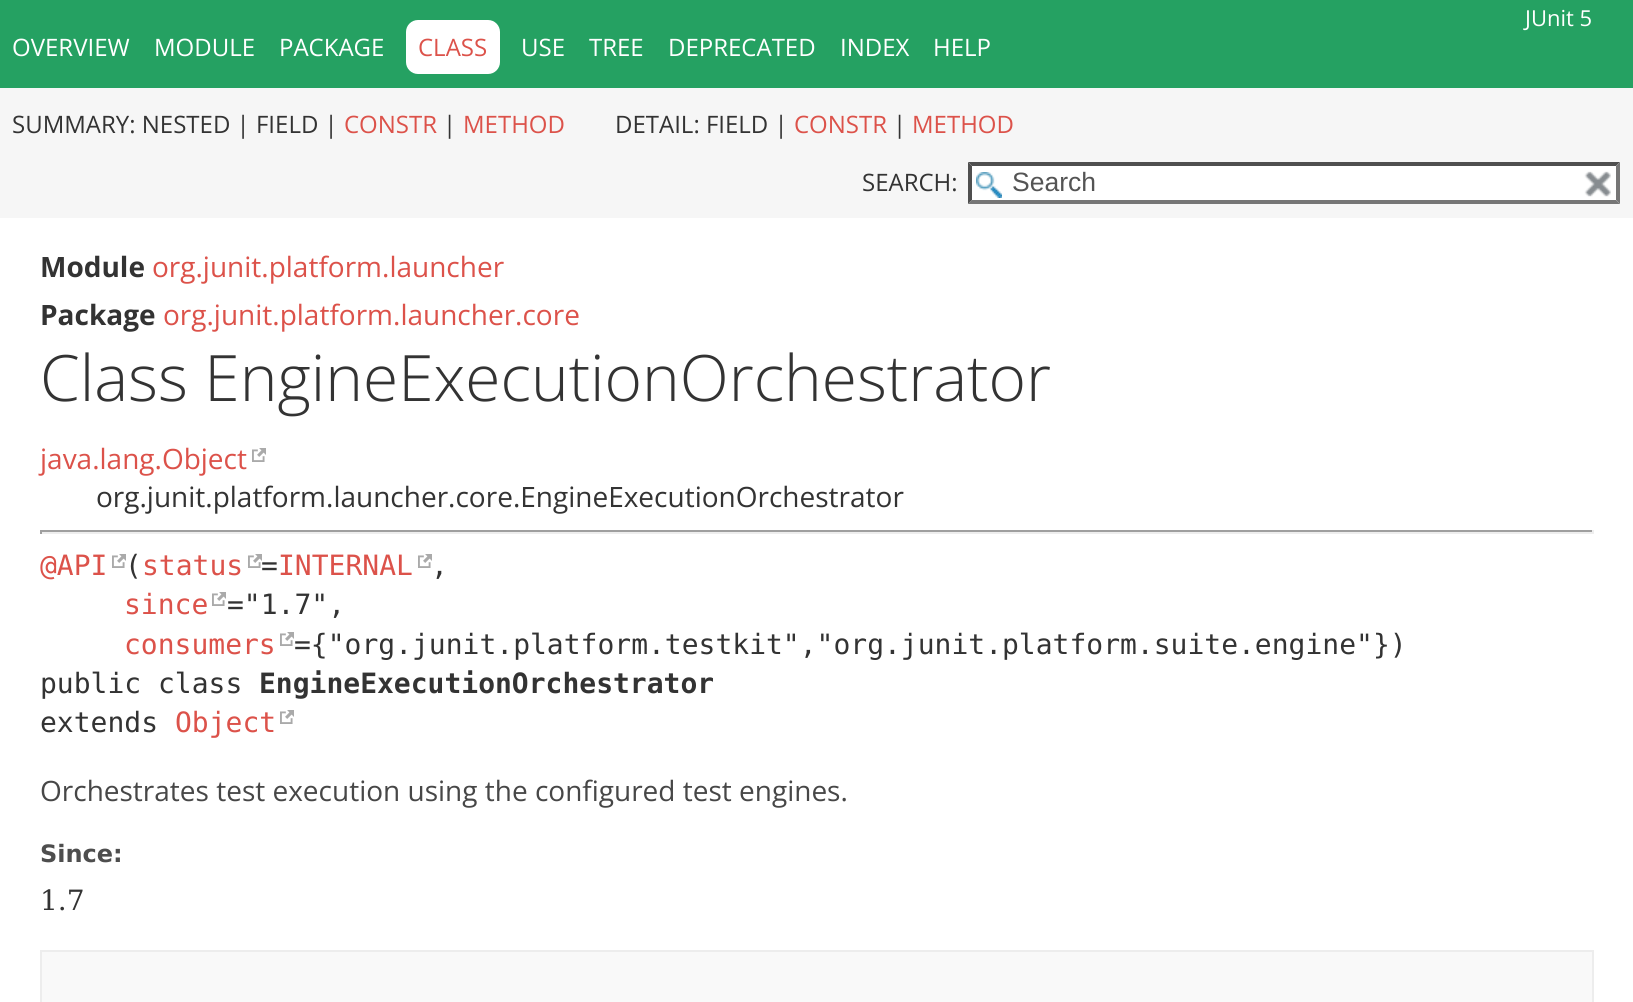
import math
import cairo

surface = cairo.ImageSurface(cairo.FORMAT_RGB24, 1633, 1002)
ctx = cairo.Context(surface)
options = cairo.FontOptions()
options.set_hint_metrics(cairo.HINT_METRICS_OFF)
options.set_hint_style(cairo.HINT_STYLE_NONE)
ctx.set_font_options(options)
ctx.set_miter_limit(4)


def round_rect(x, y, w, h, r):
    ctx.new_sub_path()
    for i, (u, v) in enumerate([(x + w - r, y + h - r), (x + r, y + h - r), (x + r, y + r), (x + w - r, y + r)]):
        ctx.arc(u, v, r, i * math.pi / 2, (i + 1) * math.pi / 2)
    ctx.close_path()


def picture(path, x, y, w, h):
    ctx.save()
    ctx.set_source_surface(cairo.ImageSurface.create_from_png(path), x, y)
    ctx.rectangle(x, y, w, h)
    ctx.fill()
    ctx.restore()


ctx.set_source_rgb(1, 1, 1)
ctx.paint()
ctx.set_source_rgb(0.145, 0.631, 0.384)
ctx.rectangle(0, 0, 1633, 88)
ctx.fill()
ctx.select_font_face("Open Sans")
ctx.set_font_size(22)
ctx.set_source_rgb(1, 1, 1)
ctx.move_to(1525, 26)
ctx.show_text("JUnit 5")
ctx.set_font_size(24)
ctx.move_to(12, 56)
ctx.show_text("OVERVIEW")
ctx.move_to(154, 56)
ctx.show_text("MODULE")
ctx.move_to(279, 56)
ctx.show_text("PACKAGE")
round_rect(406, 20, 94, 54, 12)
ctx.fill()
ctx.set_source_rgb(0.863, 0.322, 0.29)
ctx.move_to(418, 56)
ctx.show_text("CLASS")
ctx.set_source_rgb(1, 1, 1)
ctx.move_to(521, 56)
ctx.show_text("USE")
ctx.move_to(589, 56)
ctx.show_text("TREE")
ctx.move_to(668, 56)
ctx.show_text("DEPRECATED")
ctx.move_to(840, 56)
ctx.show_text("INDEX")
ctx.move_to(933, 56)
ctx.show_text("HELP")
ctx.set_source_rgb(0.961, 0.961, 0.961)
ctx.rectangle(0, 88, 1633, 130)
ctx.fill()
ctx.set_source_rgb(0.2, 0.2, 0.2)
ctx.move_to(12, 133)
ctx.show_text("SUMMARY: NESTED | FIELD |")
ctx.set_source_rgb(0.863, 0.322, 0.29)
ctx.move_to(344, 133)
ctx.show_text("CONSTR")
ctx.set_source_rgb(0.2, 0.2, 0.2)
ctx.move_to(443, 133)
ctx.show_text("|")
ctx.set_source_rgb(0.863, 0.322, 0.29)
ctx.move_to(463, 133)
ctx.show_text("METHOD")
ctx.set_source_rgb(0.2, 0.2, 0.2)
ctx.move_to(615, 133)
ctx.show_text("DETAIL: FIELD |")
ctx.set_source_rgb(0.863, 0.322, 0.29)
ctx.move_to(794, 133)
ctx.show_text("CONSTR")
ctx.set_source_rgb(0.2, 0.2, 0.2)
ctx.move_to(893, 133)
ctx.show_text("|")
ctx.set_source_rgb(0.863, 0.322, 0.29)
ctx.move_to(912, 133)
ctx.show_text("METHOD")
ctx.set_source_rgb(0.2, 0.2, 0.2)
ctx.move_to(862, 191)
ctx.show_text("SEARCH:")
ctx.set_source_rgb(1, 1, 1)
ctx.rectangle(968, 162, 652, 42)
ctx.fill()
picture("img1.png", 976, 172, 26, 26)
ctx.set_source_rgb(0.31, 0.31, 0.31)
ctx.new_path()
ctx.move_to(968, 162)
ctx.line_to(1620, 162)
ctx.line_to(1616, 166)
ctx.line_to(972, 166)
ctx.close_path()
ctx.fill()
ctx.set_source_rgb(0.463, 0.463, 0.463)
ctx.new_path()
ctx.move_to(1620, 162)
ctx.line_to(1620, 204)
ctx.line_to(1616, 200)
ctx.line_to(1616, 166)
ctx.close_path()
ctx.fill()
ctx.new_path()
ctx.move_to(1620, 204)
ctx.line_to(968, 204)
ctx.line_to(972, 200)
ctx.line_to(1616, 200)
ctx.close_path()
ctx.fill()
ctx.set_source_rgb(0.31, 0.31, 0.31)
ctx.new_path()
ctx.move_to(968, 204)
ctx.line_to(968, 162)
ctx.line_to(972, 166)
ctx.line_to(972, 200)
ctx.close_path()
ctx.fill()
ctx.select_font_face("Liberation Sans")
ctx.set_font_size(26.5)
ctx.set_source_rgb(0.329, 0.329, 0.329)
ctx.move_to(1012, 191)
ctx.show_text("Search")
picture("img2.png", 1584, 171, 27, 26)
ctx.select_font_face("Open Sans", cairo.FONT_SLANT_NORMAL, cairo.FONT_WEIGHT_BOLD)
ctx.set_font_size(28)
ctx.set_source_rgb(0.2, 0.2, 0.2)
ctx.move_to(40, 277)
ctx.show_text("Module")
ctx.select_font_face("Open Sans")
ctx.set_source_rgb(0.863, 0.322, 0.29)
ctx.move_to(152, 277)
ctx.show_text("org.junit.platform.launcher")
ctx.select_font_face("Open Sans", cairo.FONT_SLANT_NORMAL, cairo.FONT_WEIGHT_BOLD)
ctx.set_source_rgb(0.2, 0.2, 0.2)
ctx.move_to(40, 325)
ctx.show_text("Package")
ctx.select_font_face("Open Sans")
ctx.set_source_rgb(0.863, 0.322, 0.29)
ctx.move_to(163, 325)
ctx.show_text("org.junit.platform.launcher.core")
ctx.select_font_face("Open Sans Light")
ctx.set_font_size(64)
ctx.set_source_rgb(0.2, 0.2, 0.2)
ctx.move_to(40, 401)
ctx.show_text("Class EngineExecutionOrchestrator")
ctx.select_font_face("Open Sans")
ctx.set_font_size(28)
ctx.set_source_rgb(0.863, 0.322, 0.29)
ctx.move_to(40, 469)
ctx.show_text("java.lang.Object")
picture("img3.png", 252, 448, 14, 14)
ctx.set_source_rgb(0.2, 0.2, 0.2)
ctx.move_to(96, 507)
ctx.show_text("org.junit.platform.launcher.core.EngineExecutionOrchestrator")
ctx.set_source_rgb(0.624, 0.624, 0.624)
ctx.rectangle(40, 530, 1554, 2)
ctx.fill()
ctx.set_source_rgb(0.933, 0.933, 0.933)
ctx.rectangle(1592, 530, 2, 4)
ctx.fill()
ctx.rectangle(40, 532, 1554, 2)
ctx.fill()
ctx.set_source_rgb(0.624, 0.624, 0.624)
ctx.rectangle(40, 530, 2, 4)
ctx.fill()
ctx.select_font_face("DejaVu Sans Mono")
ctx.set_source_rgb(0.863, 0.322, 0.29)
ctx.move_to(40, 575)
ctx.show_text("@API")
picture("img3.png", 112, 554, 14, 14)
ctx.set_source_rgb(0.2, 0.2, 0.2)
ctx.move_to(125, 575)
ctx.show_text("(")
ctx.set_source_rgb(0.863, 0.322, 0.29)
ctx.move_to(142, 575)
ctx.show_text("status")
picture("img3.png", 248, 554, 14, 14)
ctx.set_source_rgb(0.2, 0.2, 0.2)
ctx.move_to(261, 575)
ctx.show_text("=")
ctx.set_source_rgb(0.863, 0.322, 0.29)
ctx.move_to(278, 575)
ctx.show_text("INTERNAL")
picture("img3.png", 418, 554, 14, 14)
ctx.set_source_rgb(0.2, 0.2, 0.2)
ctx.move_to(431, 575)
ctx.show_text(",")
ctx.set_source_rgb(0.863, 0.322, 0.29)
ctx.move_to(124, 614)
ctx.show_text("since")
picture("img3.png", 212, 592, 14, 14)
ctx.set_source_rgb(0.2, 0.2, 0.2)
ctx.move_to(227, 614)
ctx.show_text("=\"1.7\",")
ctx.set_source_rgb(0.863, 0.322, 0.29)
ctx.move_to(124, 654)
ctx.show_text("consumers")
picture("img3.png", 280, 632, 14, 14)
ctx.set_source_rgb(0.2, 0.2, 0.2)
ctx.move_to(294, 654)
ctx.show_text("={\"org.junit.platform.testkit\",\"org.junit.platform.suite.engine\"})")
ctx.move_to(40, 693)
ctx.show_text("public class")
ctx.select_font_face("DejaVu Sans Mono", cairo.FONT_SLANT_NORMAL, cairo.FONT_WEIGHT_BOLD)
ctx.move_to(259, 693)
ctx.show_text("EngineExecutionOrchestrator")
ctx.select_font_face("DejaVu Sans Mono")
ctx.move_to(40, 732)
ctx.show_text("extends")
ctx.set_source_rgb(0.863, 0.322, 0.29)
ctx.move_to(175, 732)
ctx.show_text("Object")
picture("img3.png", 280, 710, 14, 14)
ctx.select_font_face("Open Sans")
ctx.set_source_rgb(0.278, 0.278, 0.278)
ctx.move_to(40, 801)
ctx.show_text("Orchestrates test execution using the configured test engines.")
ctx.select_font_face("DejaVu Sans", cairo.FONT_SLANT_NORMAL, cairo.FONT_WEIGHT_BOLD)
ctx.set_font_size(24)
ctx.set_source_rgb(0.306, 0.306, 0.306)
ctx.move_to(40, 862)
ctx.show_text("Since:")
ctx.select_font_face("DejaVu Serif")
ctx.set_font_size(28)
ctx.set_source_rgb(0.2, 0.2, 0.2)
ctx.move_to(40, 910)
ctx.show_text("1.7")
ctx.set_source_rgb(0.973, 0.973, 0.973)
ctx.rectangle(41, 951, 1552, 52)
ctx.fill_preserve()
ctx.set_source_rgb(0.929, 0.929, 0.929)
ctx.stroke()
surface.write_to_png("page.png")
